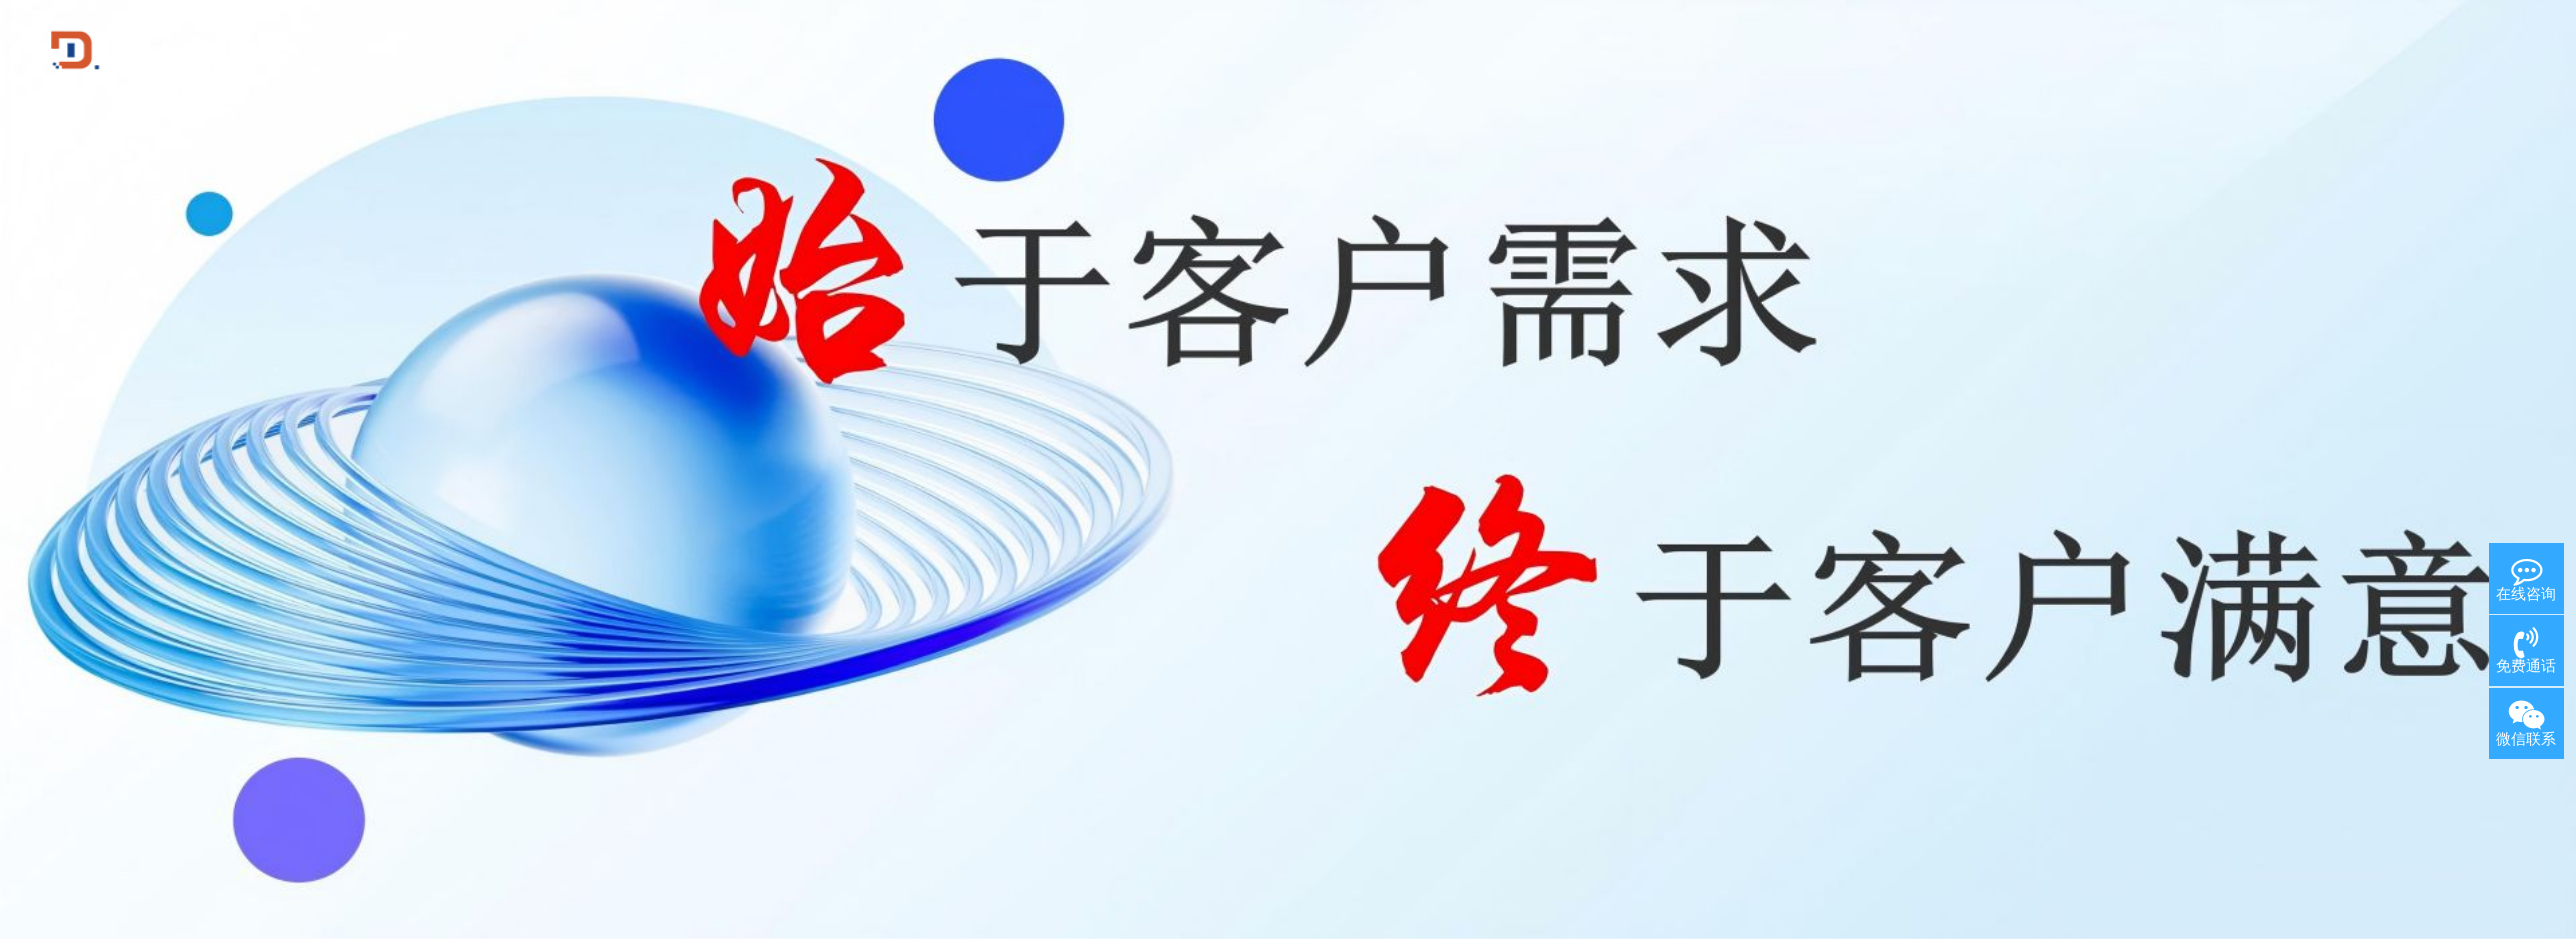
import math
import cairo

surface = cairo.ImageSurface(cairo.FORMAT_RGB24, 2576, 947)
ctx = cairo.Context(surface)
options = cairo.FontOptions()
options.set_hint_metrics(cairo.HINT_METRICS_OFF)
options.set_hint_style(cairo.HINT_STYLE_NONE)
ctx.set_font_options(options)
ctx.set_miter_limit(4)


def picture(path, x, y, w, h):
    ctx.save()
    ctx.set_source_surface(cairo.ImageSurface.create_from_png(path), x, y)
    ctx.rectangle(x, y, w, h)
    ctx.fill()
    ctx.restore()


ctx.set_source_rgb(1, 1, 1)
ctx.paint()
picture("img1.png", 0, 0, 2576, 939)
picture("img2.png", 51, 30, 50, 40)
ctx.set_source_rgb(0.2, 0.667, 1)
ctx.rectangle(2489, 543, 75, 71)
ctx.fill()
picture("img3.png", 2511, 558, 32, 28)
ctx.select_font_face("WenQuanYi Zen Hei Medium")
ctx.set_font_size(15)
ctx.set_source_rgb(1, 1, 1)
ctx.move_to(2496, 599)
ctx.show_text("在线咨询")
ctx.set_source_rgb(0.2, 0.667, 1)
ctx.rectangle(2489, 615, 75, 71)
ctx.fill()
picture("img4.png", 2513, 627, 26, 32)
ctx.set_source_rgb(1, 1, 1)
ctx.move_to(2496, 671)
ctx.show_text("免费通话")
ctx.set_source_rgb(0.2, 0.667, 1)
ctx.rectangle(2489, 688, 75, 71)
ctx.fill()
picture("img5.png", 2508, 700, 37, 30)
ctx.set_source_rgb(1, 1, 1)
ctx.move_to(2496, 744)
ctx.show_text("微信联系")
surface.write_to_png("page.png")
